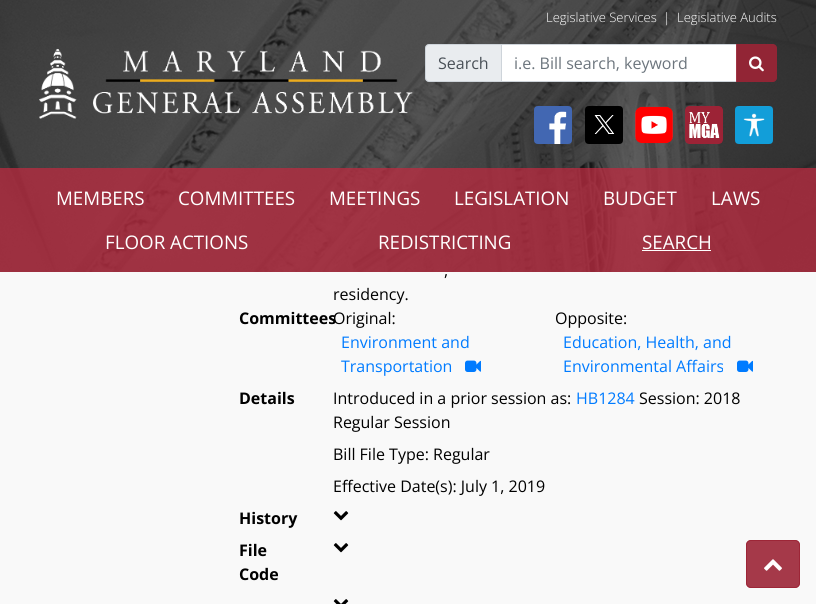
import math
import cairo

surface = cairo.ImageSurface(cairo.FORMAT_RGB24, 816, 604)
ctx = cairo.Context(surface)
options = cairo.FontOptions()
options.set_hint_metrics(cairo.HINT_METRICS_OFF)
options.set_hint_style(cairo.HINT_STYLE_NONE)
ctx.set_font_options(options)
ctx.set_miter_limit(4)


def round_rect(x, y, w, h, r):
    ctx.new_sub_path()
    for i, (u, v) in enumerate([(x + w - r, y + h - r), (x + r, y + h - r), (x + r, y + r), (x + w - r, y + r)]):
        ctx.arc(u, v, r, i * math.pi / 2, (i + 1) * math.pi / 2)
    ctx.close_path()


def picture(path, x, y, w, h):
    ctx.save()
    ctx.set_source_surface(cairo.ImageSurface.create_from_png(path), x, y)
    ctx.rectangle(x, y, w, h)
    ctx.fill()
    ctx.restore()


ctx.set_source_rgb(0.973, 0.973, 0.973)
ctx.paint()
picture("img1.png", 0, 0, 816, 272)
ctx.set_source_rgba(0, 0, 0, 0.6)
ctx.rectangle(0, 0, 816, 168)
ctx.fill()
picture("img2.png", 39, 48, 374, 71)
ctx.select_font_face("Open Sans Light")
ctx.set_font_size(13)
ctx.set_source_rgb(1, 1, 1)
ctx.move_to(546, 22)
ctx.show_text("Legislative Services")
ctx.move_to(663, 22)
ctx.show_text("|")
ctx.move_to(677, 22)
ctx.show_text("Legislative Audits")
ctx.set_source_rgb(0.914, 0.925, 0.937)
ctx.new_path()
ctx.move_to(429, 44.5)
ctx.line_to(501.5, 44.5)
ctx.line_to(501.5, 81.5)
ctx.line_to(429, 81.5)
ctx.curve_to(427, 81.5, 425.5, 80, 425.5, 78)
ctx.line_to(425.5, 48)
ctx.curve_to(425.5, 46, 427, 44.5, 429, 44.5)
ctx.close_path()
ctx.fill_preserve()
ctx.set_source_rgb(0.808, 0.831, 0.855)
ctx.set_line_width(1)
ctx.stroke()
ctx.select_font_face("Open Sans")
ctx.set_font_size(16)
ctx.set_source_rgb(0.286, 0.314, 0.341)
ctx.move_to(438, 69)
ctx.show_text("Search")
ctx.set_source_rgb(1, 1, 1)
ctx.rectangle(501.5, 44.5, 235, 37)
ctx.fill_preserve()
ctx.set_source_rgb(0.808, 0.831, 0.855)
ctx.stroke()
ctx.set_source_rgb(0.424, 0.459, 0.49)
ctx.move_to(514, 69)
ctx.show_text("i.e. Bill search, keyword")
ctx.set_source_rgba(0.612, 0.141, 0.212, 0.9)
ctx.new_path()
ctx.move_to(736, 44)
ctx.line_to(773, 44)
ctx.curve_to(775, 44, 777, 46, 777, 48)
ctx.line_to(777, 78)
ctx.curve_to(777, 80, 775, 82, 773, 82)
ctx.line_to(736, 82)
ctx.close_path()
ctx.fill()
picture("img3.png", 749, 56, 15, 16)
picture("img4.png", 534, 106, 38, 38)
picture("img5.png", 585, 106, 38, 38)
picture("img6.png", 635, 106, 38, 38)
picture("img7.png", 685, 106, 38, 38)
picture("img8.png", 735, 106, 38, 38)
ctx.rectangle(0, 168, 816, 104)
ctx.fill()
ctx.set_font_size(18.75)
ctx.set_source_rgb(1, 1, 1)
ctx.move_to(56, 205)
ctx.show_text("MEMBERS")
ctx.move_to(178, 205)
ctx.show_text("COMMITTEES")
ctx.move_to(329, 205)
ctx.show_text("MEETINGS")
ctx.move_to(454, 205)
ctx.show_text("LEGISLATION")
ctx.move_to(603, 205)
ctx.show_text("BUDGET")
ctx.move_to(711, 205)
ctx.show_text("LAWS")
ctx.move_to(105, 249)
ctx.show_text("FLOOR ACTIONS")
ctx.move_to(378, 249)
ctx.show_text("REDISTRICTING")
ctx.move_to(642, 249)
ctx.show_text("SEARCH")
ctx.rectangle(642, 250, 69, 1)
ctx.fill()
ctx.set_font_size(16)
ctx.set_source_rgb(0, 0, 0)
ctx.move_to(444, 276)
ctx.show_text(",")
ctx.move_to(333, 300)
ctx.show_text("residency.")
ctx.select_font_face("Open Sans", cairo.FONT_SLANT_NORMAL, cairo.FONT_WEIGHT_BOLD)
ctx.move_to(239, 324)
ctx.show_text("Committees")
ctx.select_font_face("Open Sans")
ctx.move_to(333, 324)
ctx.show_text("Original:")
ctx.set_source_rgb(0, 0.482, 1)
ctx.move_to(341, 348)
ctx.show_text("Environment and")
ctx.move_to(341, 372)
ctx.show_text("Transportation")
picture("img9.png", 465, 360, 16, 12)
ctx.set_source_rgb(0, 0, 0)
ctx.move_to(555, 324)
ctx.show_text("Opposite:")
ctx.set_source_rgb(0, 0.482, 1)
ctx.move_to(563, 348)
ctx.show_text("Education, Health, and")
ctx.move_to(563, 372)
ctx.show_text("Environmental Affairs")
picture("img9.png", 737, 360, 16, 12)
ctx.select_font_face("Open Sans", cairo.FONT_SLANT_NORMAL, cairo.FONT_WEIGHT_BOLD)
ctx.set_source_rgb(0, 0, 0)
ctx.move_to(239, 404)
ctx.show_text("Details")
ctx.select_font_face("Open Sans")
ctx.move_to(333, 404)
ctx.show_text("Introduced in a prior session as:")
ctx.set_source_rgb(0, 0.482, 1)
ctx.move_to(576, 404)
ctx.show_text("HB1284")
ctx.set_source_rgb(0, 0, 0)
ctx.move_to(639, 404)
ctx.show_text("Session: 2018")
ctx.move_to(333, 428)
ctx.show_text("Regular Session")
ctx.move_to(333, 460)
ctx.show_text("Bill File Type: Regular")
ctx.move_to(333, 492)
ctx.show_text("Effective Date(s): July 1, 2019")
ctx.select_font_face("Open Sans", cairo.FONT_SLANT_NORMAL, cairo.FONT_WEIGHT_BOLD)
ctx.move_to(239, 524)
ctx.show_text("History")
picture("img10.png", 333, 511, 16, 10)
ctx.move_to(239, 556)
ctx.show_text("File")
ctx.move_to(239, 580)
ctx.show_text("Code")
picture("img10.png", 333, 543, 16, 10)
picture("img11.png", 333, 599, 16, 5)
ctx.set_source_rgb(0.647, 0.224, 0.286)
round_rect(746, 540, 54, 48, 5)
ctx.fill()
round_rect(746.5, 540.5, 53, 47, 4.5)
ctx.set_source_rgba(0.612, 0.141, 0.212, 0.9)
ctx.stroke()
picture("img12.png", 764, 559, 18, 12)
surface.write_to_png("page.png")
